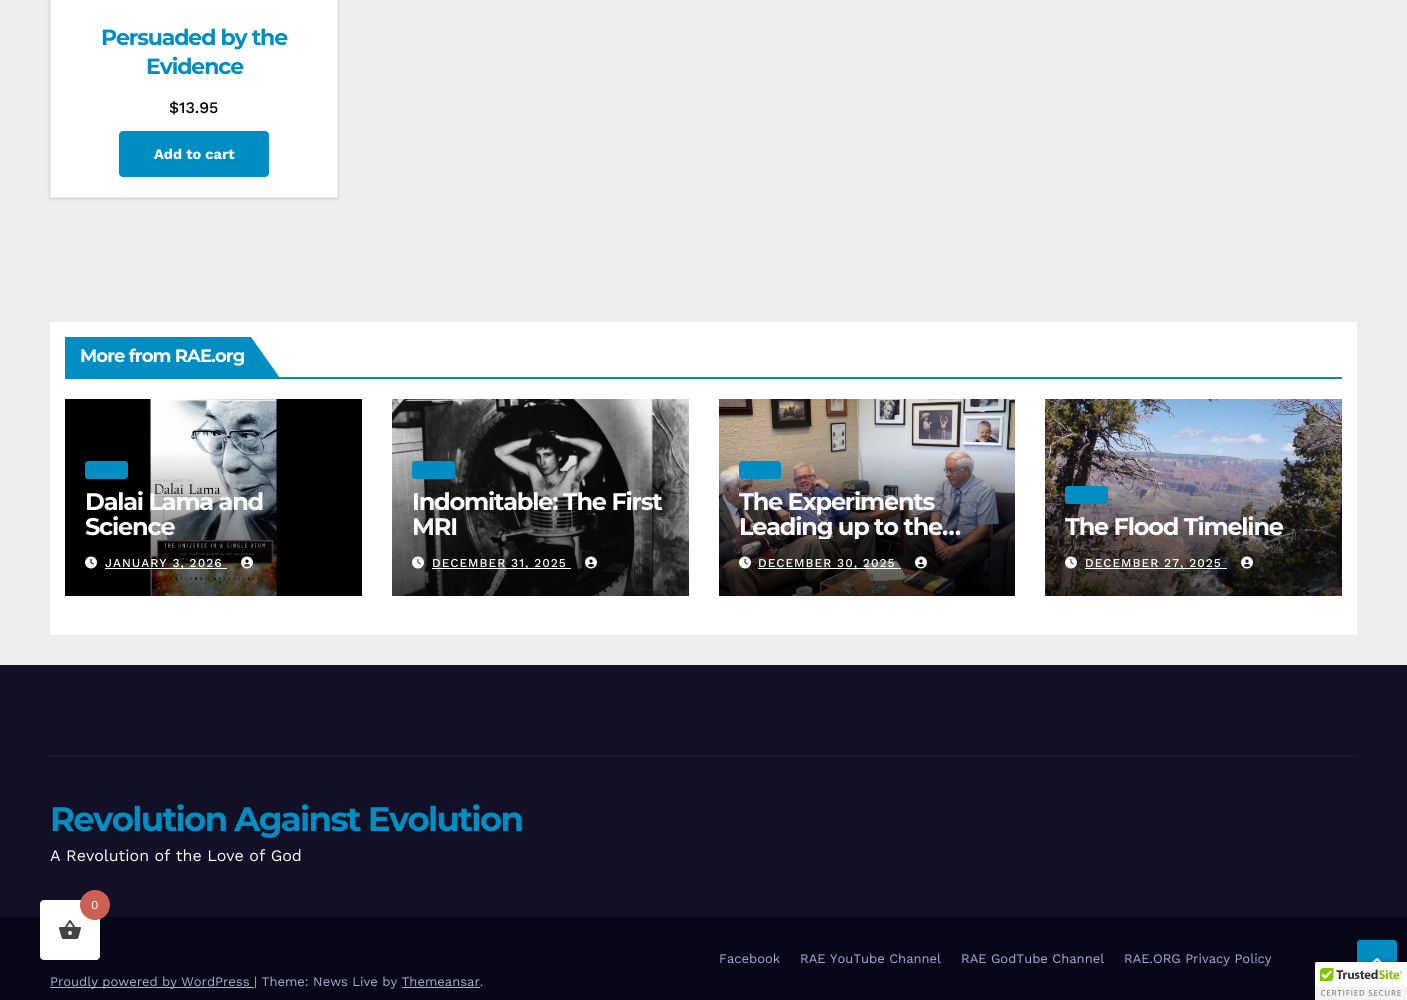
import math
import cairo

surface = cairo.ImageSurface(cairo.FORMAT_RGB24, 1407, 1000)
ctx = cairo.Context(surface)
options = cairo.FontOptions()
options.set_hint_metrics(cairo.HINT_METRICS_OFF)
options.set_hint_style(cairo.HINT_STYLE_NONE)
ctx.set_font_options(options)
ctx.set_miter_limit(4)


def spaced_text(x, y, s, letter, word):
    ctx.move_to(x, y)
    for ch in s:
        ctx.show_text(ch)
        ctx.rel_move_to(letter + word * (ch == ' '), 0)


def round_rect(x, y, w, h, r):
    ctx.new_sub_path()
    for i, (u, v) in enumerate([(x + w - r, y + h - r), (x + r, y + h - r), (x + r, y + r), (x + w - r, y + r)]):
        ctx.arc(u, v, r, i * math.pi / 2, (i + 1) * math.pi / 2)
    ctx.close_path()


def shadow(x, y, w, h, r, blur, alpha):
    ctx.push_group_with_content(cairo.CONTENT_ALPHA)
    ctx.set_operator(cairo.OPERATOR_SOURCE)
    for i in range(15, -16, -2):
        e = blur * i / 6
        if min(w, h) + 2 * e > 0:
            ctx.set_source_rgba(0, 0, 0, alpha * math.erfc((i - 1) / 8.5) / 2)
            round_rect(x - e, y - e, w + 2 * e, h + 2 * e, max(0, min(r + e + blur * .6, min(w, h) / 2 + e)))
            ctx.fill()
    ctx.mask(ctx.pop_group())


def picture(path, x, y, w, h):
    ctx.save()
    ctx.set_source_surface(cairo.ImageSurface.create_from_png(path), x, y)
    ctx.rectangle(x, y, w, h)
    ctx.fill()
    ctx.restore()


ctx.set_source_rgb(0.933, 0.933, 0.933)
ctx.paint()
ctx.set_source_rgb(0, 0, 0)
shadow(50, -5, 288, 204, 0, 1.5, 0.15)
ctx.set_source_rgb(1, 1, 1)
ctx.rectangle(50.5, -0.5, 287, 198)
ctx.fill_preserve()
ctx.set_source_rgb(0.918, 0.918, 0.918)
ctx.set_line_width(1)
ctx.stroke()
ctx.select_font_face("Montserrat", cairo.FONT_SLANT_NORMAL, cairo.FONT_WEIGHT_BOLD)
ctx.set_font_size(22)
ctx.set_source_rgb(0, 0.557, 0.761)
spaced_text(101, 45, "Persuaded by the", -1.1, 0)
spaced_text(146, 74, "Evidence", -1.1, 0)
ctx.select_font_face("Work Sans Medium")
ctx.set_font_size(16)
ctx.set_source_rgb(0, 0, 0)
ctx.move_to(169, 113)
ctx.show_text("$13.95")
ctx.set_source_rgb(0, 0.557, 0.761)
round_rect(119, 131, 150, 46, 4)
ctx.fill()
ctx.select_font_face("Work Sans", cairo.FONT_SLANT_NORMAL, cairo.FONT_WEIGHT_BOLD)
ctx.set_font_size(14.5)
ctx.set_source_rgb(1, 1, 1)
ctx.move_to(154, 159)
ctx.show_text("Add to cart")
ctx.rectangle(50, 322, 1307, 313)
ctx.fill()
ctx.set_source_rgb(0, 0.557, 0.761)
ctx.rectangle(65, 377, 1277, 2)
ctx.fill()
ctx.rectangle(65, 337, 186, 40)
ctx.fill()
ctx.select_font_face("Montserrat", cairo.FONT_SLANT_NORMAL, cairo.FONT_WEIGHT_BOLD)
ctx.set_font_size(18)
ctx.set_source_rgb(1, 1, 1)
spaced_text(80, 362, "More from RAE.org", -0.9, 0)
ctx.set_source_rgb(0, 0.557, 0.761)
ctx.new_path()
ctx.move_to(251, 337)
ctx.line_to(250, 378)
ctx.line_to(280, 378)
ctx.close_path()
ctx.fill()
picture("img1.png", 65, 399, 297, 197)
round_rect(85, 461, 43, 18, 3)
ctx.fill()
ctx.set_font_size(24)
ctx.set_source_rgb(1, 1, 1)
spaced_text(85, 510, "Dalai Lama and", -1.2, 0)
spaced_text(85, 535, "Science", -1.2, 0)
picture("img2.png", 85, 556, 12, 13)
ctx.rectangle(105, 568, 122, 1)
ctx.fill()
ctx.select_font_face("Work Sans Medium")
ctx.set_font_size(12)
spaced_text(105, 567, "JANUARY 3, 2026", 1, 0)
picture("img3.png", 241, 556, 12, 13)
picture("img4.png", 392, 399, 297, 197)
ctx.set_source_rgb(0, 0.557, 0.761)
round_rect(412, 461, 43, 18, 3)
ctx.fill()
ctx.select_font_face("Montserrat", cairo.FONT_SLANT_NORMAL, cairo.FONT_WEIGHT_BOLD)
ctx.set_font_size(24)
ctx.set_source_rgb(1, 1, 1)
spaced_text(412, 510, "Indomitable: The First", -1.2, 0)
spaced_text(412, 535, "MRI", -1.2, 0)
picture("img5.png", 412, 556, 12, 13)
ctx.rectangle(432, 568, 139, 1)
ctx.fill()
ctx.select_font_face("Work Sans Medium")
ctx.set_font_size(12)
spaced_text(432, 567, "DECEMBER 31, 2025", 1, 0)
picture("img6.png", 585, 556, 12, 13)
picture("img7.png", 719, 399, 296, 197)
ctx.set_source_rgb(0, 0.557, 0.761)
round_rect(739, 461, 42, 18, 3)
ctx.fill()
ctx.save()
ctx.rectangle(739, 489, 256, 50)
ctx.clip()
ctx.select_font_face("Montserrat", cairo.FONT_SLANT_NORMAL, cairo.FONT_WEIGHT_BOLD)
ctx.set_font_size(24)
ctx.set_source_rgb(1, 1, 1)
spaced_text(739, 510, "The Experiments", -1.2, 0)
spaced_text(739, 535, "Leading up to the…", -1.2, 0)
ctx.restore()
picture("img8.png", 739, 556, 12, 13)
ctx.set_source_rgb(1, 1, 1)
ctx.rectangle(758, 568, 143, 1)
ctx.fill()
spaced_text(758, 567, "DECEMBER 30, 2025", 1, 0)
picture("img9.png", 915, 556, 12, 13)
picture("img10.png", 1045, 399, 297, 197)
ctx.set_source_rgb(0, 0.557, 0.761)
round_rect(1065, 486, 43, 18, 3)
ctx.fill()
ctx.select_font_face("Montserrat", cairo.FONT_SLANT_NORMAL, cairo.FONT_WEIGHT_BOLD)
ctx.set_font_size(24)
ctx.set_source_rgb(1, 1, 1)
spaced_text(1065, 535, "The Flood Timeline", -1.2, 0)
picture("img11.png", 1065, 556, 12, 13)
ctx.rectangle(1085, 568, 142, 1)
ctx.fill()
ctx.select_font_face("Work Sans Medium")
ctx.set_font_size(12)
spaced_text(1085, 567, "DECEMBER 27, 2025", 1, 0)
picture("img12.png", 1241, 556, 12, 13)
ctx.set_source_rgb(0.071, 0.063, 0.149)
ctx.rectangle(0, 665, 1407, 252)
ctx.fill()
ctx.set_source_rgb(0.102, 0.094, 0.18)
ctx.rectangle(50, 755, 1307, 2)
ctx.fill()
ctx.select_font_face("Montserrat", cairo.FONT_SLANT_NORMAL, cairo.FONT_WEIGHT_BOLD)
ctx.set_font_size(34)
ctx.set_source_rgb(0, 0.557, 0.761)
spaced_text(50, 831, "Revolution Against Evolution", -1.7, 0)
ctx.select_font_face("Work Sans")
ctx.set_font_size(16)
ctx.set_source_rgb(1, 1, 1)
ctx.move_to(50, 861)
ctx.show_text("A Revolution of the Love of God")
ctx.set_source_rgb(0.035, 0.031, 0.094)
ctx.rectangle(0, 917, 1407, 83)
ctx.fill()
ctx.set_font_size(13)
ctx.set_source_rgb(0.667, 0.682, 0.82)
ctx.move_to(719, 963)
ctx.show_text("Facebook")
ctx.move_to(800, 963)
ctx.show_text("RAE YouTube Channel")
ctx.move_to(961, 963)
ctx.show_text("RAE GodTube Channel")
ctx.move_to(1124, 963)
ctx.show_text("RAE.ORG Privacy Policy")
ctx.rectangle(50, 987, 204, 1)
ctx.fill()
ctx.move_to(50, 986)
ctx.show_text("Proudly powered by WordPress | Theme: News Live by Themeansar.")
ctx.rectangle(402, 987, 78, 1)
ctx.fill()
ctx.set_source_rgb(1, 1, 1)
round_rect(40, 900, 60, 60, 4)
ctx.fill()
ctx.set_source_rgb(0.8, 0.376, 0.333)
ctx.arc(95, 905, 15, 0, 2 * math.pi)
ctx.fill()
ctx.set_font_size(12)
ctx.set_source_rgb(1, 1, 1)
ctx.move_to(91, 909)
ctx.show_text("0")
picture("img13.png", 59, 920, 22, 19)
ctx.set_source_rgb(0, 0.557, 0.761)
round_rect(1358, 941, 38, 38, 2)
ctx.fill_preserve()
ctx.set_line_width(2)
ctx.stroke()
picture("img14.png", 1372, 958, 10, 4)
ctx.set_source_rgb(0, 0, 0)
shadow(1315, 962, 92, 38, 2, 2.5, 0.2)
ctx.set_source_rgb(1, 1, 1)
ctx.new_path()
ctx.move_to(1317, 962)
ctx.line_to(1407, 962)
ctx.line_to(1407, 1000)
ctx.line_to(1315, 1000)
ctx.line_to(1315, 964)
ctx.curve_to(1315, 963, 1316, 962, 1317, 962)
ctx.close_path()
ctx.fill()
picture("img15.png", 1315, 962, 92, 38)
surface.write_to_png("page.png")
